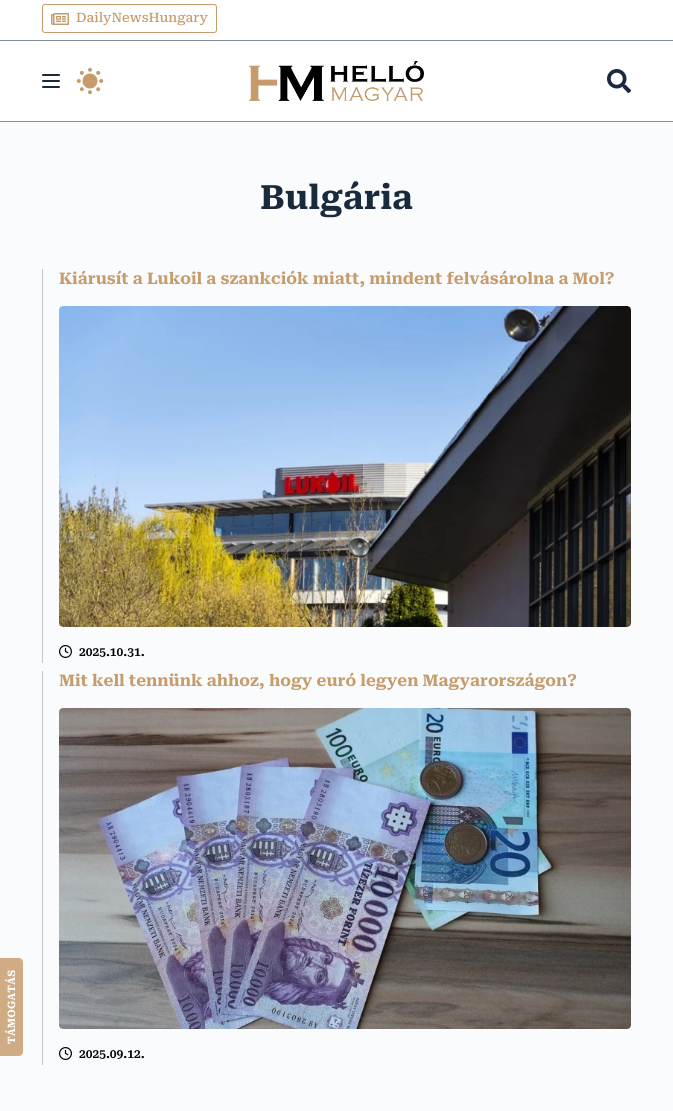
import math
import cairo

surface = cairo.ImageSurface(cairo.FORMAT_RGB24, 673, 1111)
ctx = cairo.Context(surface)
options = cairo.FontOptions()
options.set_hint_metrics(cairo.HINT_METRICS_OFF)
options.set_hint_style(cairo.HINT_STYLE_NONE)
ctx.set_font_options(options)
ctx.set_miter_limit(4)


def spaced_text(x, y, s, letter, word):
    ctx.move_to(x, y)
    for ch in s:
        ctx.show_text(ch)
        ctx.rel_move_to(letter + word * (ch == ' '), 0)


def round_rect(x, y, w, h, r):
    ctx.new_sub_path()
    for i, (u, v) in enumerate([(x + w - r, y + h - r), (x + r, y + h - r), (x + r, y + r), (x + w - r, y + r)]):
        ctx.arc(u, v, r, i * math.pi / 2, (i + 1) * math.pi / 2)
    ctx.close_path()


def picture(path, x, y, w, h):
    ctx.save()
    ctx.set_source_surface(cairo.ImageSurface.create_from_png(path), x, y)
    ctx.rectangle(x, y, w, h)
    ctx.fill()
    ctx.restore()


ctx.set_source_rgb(0.98, 0.984, 0.988)
ctx.paint()
ctx.set_source_rgb(1, 1, 1)
ctx.rectangle(0, 0, 673, 121)
ctx.fill()
ctx.set_source_rgb(0.518, 0.557, 0.6)
ctx.rectangle(0, 40, 673, 1)
ctx.fill()
round_rect(42.5, 4.5, 174, 28, 2.5)
ctx.set_source_rgb(0.776, 0.612, 0.431)
ctx.set_line_width(1)
ctx.stroke()
picture("img1.png", 51, 13, 18, 12)
ctx.select_font_face("Roboto Serif Medium")
ctx.set_font_size(13)
ctx.set_source_rgb(0.776, 0.612, 0.427)
ctx.move_to(76, 22)
ctx.show_text("DailyNewsHungary")
ctx.set_source_rgb(0.518, 0.557, 0.6)
ctx.rectangle(0, 121, 673, 1)
ctx.fill()
ctx.set_source_rgb(0.098, 0.165, 0.239)
round_rect(42, 74, 18, 2, 1)
ctx.fill()
round_rect(42, 80, 18, 2, 1)
ctx.fill()
round_rect(42, 86, 18, 2, 1)
ctx.fill()
picture("img2.png", 76, 67, 28, 28)
picture("img3.png", 249, 61, 175, 40)
picture("img4.png", 607, 69, 24, 24)
ctx.set_source_rgb(0.812, 0.675, 0.518)
ctx.new_path()
ctx.move_to(0, 1056)
ctx.line_to(0, 958)
ctx.line_to(19, 958)
ctx.curve_to(21, 958, 23, 960, 23, 962)
ctx.line_to(23, 1052)
ctx.curve_to(23, 1054, 21, 1056, 19, 1056)
ctx.close_path()
ctx.fill()
ctx.select_font_face("Roboto Serif", cairo.FONT_SLANT_NORMAL, cairo.FONT_WEIGHT_BOLD)
ctx.set_font_size(10.25)
ctx.set_source_rgb(1, 1, 1)
ctx.save()
ctx.translate(15, 1044)
ctx.rotate(-90 * math.pi / 180)
spaced_text(0, 0, "TÁMOGATÁS", 0.25, 0)
ctx.restore()
ctx.set_font_size(33.5)
ctx.set_source_rgb(0.098, 0.165, 0.239)
ctx.move_to(260, 209)
ctx.show_text("Bulgária")
ctx.set_source_rgb(0.78, 0.784, 0.784)
ctx.rectangle(42, 269, 1, 394)
ctx.fill()
ctx.set_font_size(16)
ctx.set_source_rgb(0.776, 0.612, 0.427)
ctx.move_to(59, 284)
ctx.show_text("Kiárusít a Lukoil a szankciók miatt, mindent felvásárolna a Mol?")
picture("img5.png", 59, 306, 572, 321)
picture("img6.png", 59, 645, 13, 13)
ctx.select_font_face("Roboto Serif SemiBold")
ctx.set_font_size(12)
ctx.set_source_rgb(0, 0, 0)
ctx.move_to(79, 656)
ctx.show_text("2025.10.31.")
ctx.set_source_rgb(0.78, 0.784, 0.784)
ctx.rectangle(42, 671, 1, 394)
ctx.fill()
ctx.select_font_face("Roboto Serif", cairo.FONT_SLANT_NORMAL, cairo.FONT_WEIGHT_BOLD)
ctx.set_font_size(16)
ctx.set_source_rgb(0.776, 0.612, 0.427)
ctx.move_to(59, 686)
ctx.show_text("Mit kell tennünk ahhoz, hogy euró legyen Magyarországon?")
picture("img7.png", 59, 708, 572, 321)
picture("img6.png", 59, 1047, 13, 13)
ctx.select_font_face("Roboto Serif SemiBold")
ctx.set_font_size(12)
ctx.set_source_rgb(0, 0, 0)
ctx.move_to(79, 1058)
ctx.show_text("2025.09.12.")
surface.write_to_png("page.png")
